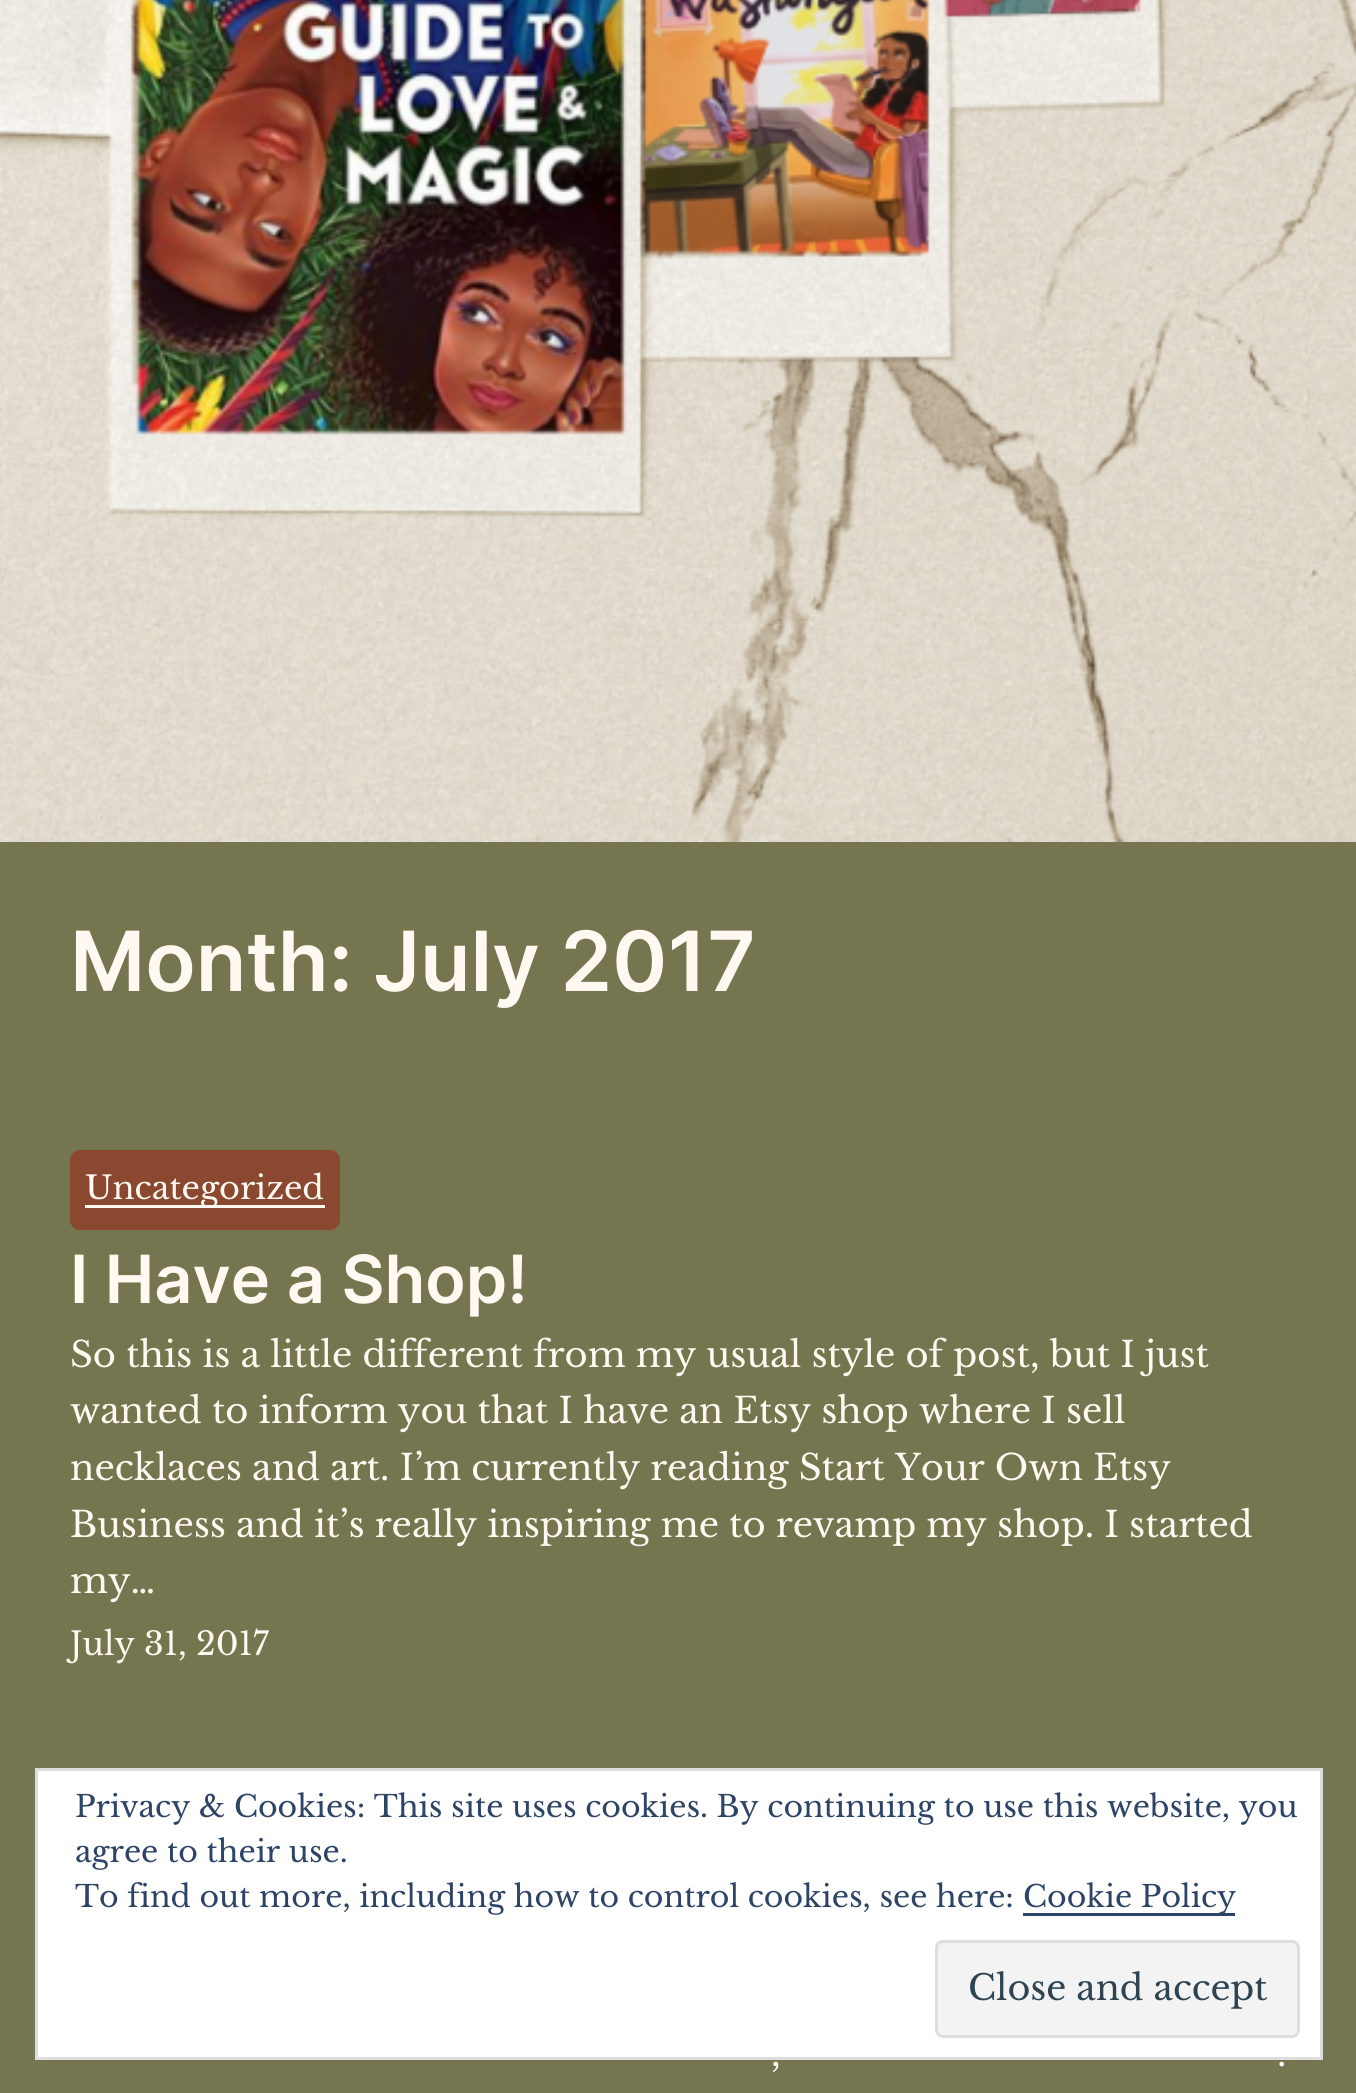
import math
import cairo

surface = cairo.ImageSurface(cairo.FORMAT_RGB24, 1356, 2093)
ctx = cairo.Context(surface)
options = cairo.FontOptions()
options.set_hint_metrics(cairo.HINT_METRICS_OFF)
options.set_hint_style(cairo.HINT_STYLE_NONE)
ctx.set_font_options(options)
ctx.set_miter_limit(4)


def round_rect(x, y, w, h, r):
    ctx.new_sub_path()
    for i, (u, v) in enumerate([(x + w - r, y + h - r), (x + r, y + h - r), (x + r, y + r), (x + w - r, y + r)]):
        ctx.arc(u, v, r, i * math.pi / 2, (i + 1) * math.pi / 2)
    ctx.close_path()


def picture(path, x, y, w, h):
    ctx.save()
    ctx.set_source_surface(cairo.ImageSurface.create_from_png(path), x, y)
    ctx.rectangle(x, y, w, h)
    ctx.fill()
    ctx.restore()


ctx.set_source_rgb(0.459, 0.459, 0.314)
ctx.paint()
picture("img1.png", 0, 0, 1356, 842)
ctx.select_font_face("Inter SemiBold")
ctx.set_font_size(83)
ctx.set_source_rgb(1, 0.976, 0.949)
ctx.move_to(70, 991)
ctx.show_text("Month: July 2017")
ctx.set_source_rgb(0.541, 0.282, 0.188)
round_rect(70, 1150, 270, 80, 10)
ctx.fill()
ctx.set_source_rgb(1, 0.976, 0.949)
ctx.rectangle(85, 1205, 240, 3)
ctx.fill()
ctx.select_font_face("Libre Baskerville")
ctx.set_font_size(32)
ctx.move_to(85, 1199)
ctx.show_text("Uncategorized")
ctx.select_font_face("Inter SemiBold")
ctx.set_font_size(66.5)
ctx.move_to(70, 1303)
ctx.show_text("I Have a Shop!")
ctx.select_font_face("Libre Baskerville")
ctx.set_font_size(35.4)
ctx.move_to(70, 1367)
ctx.show_text("So this is a little different from my usual style of post, but I just")
ctx.move_to(70, 1423)
ctx.show_text("wanted to inform you that I have an Etsy shop where I sell")
ctx.move_to(70, 1480)
ctx.show_text("necklaces and art. I’m currently reading Start Your Own Etsy")
ctx.move_to(70, 1537)
ctx.show_text("Business and it’s really inspiring me to revamp my shop. I started")
ctx.move_to(70, 1593)
ctx.show_text("my…")
ctx.set_font_size(32)
ctx.move_to(70, 1655)
ctx.show_text("July 31, 2017")
ctx.set_font_size(35.4)
ctx.move_to(771, 2066)
ctx.show_text(",")
ctx.move_to(1277, 2066)
ctx.show_text(".")
ctx.set_source_rgb(1, 1, 1)
ctx.rectangle(36.5, 1769.5, 1285, 289)
ctx.fill_preserve()
ctx.set_source_rgb(0.871, 0.871, 0.871)
ctx.set_line_width(3)
ctx.stroke()
ctx.set_font_size(30)
ctx.set_source_rgb(0.18, 0.267, 0.404)
ctx.move_to(75, 1817)
ctx.show_text("Privacy & Cookies: This site uses cookies. By continuing to use this website, you")
ctx.move_to(75, 1862)
ctx.show_text("agree to their use.")
ctx.move_to(75, 1907)
ctx.show_text("To find out more, including how to control cookies, see here:")
ctx.rectangle(1023, 1913, 212, 3)
ctx.fill()
ctx.move_to(1023, 1907)
ctx.show_text("Cookie Policy")
ctx.set_source_rgb(0.953, 0.953, 0.953)
round_rect(936.5, 1941.5, 362, 95, 6.5)
ctx.fill_preserve()
ctx.set_source_rgb(0.871, 0.871, 0.871)
ctx.stroke()
ctx.set_font_size(35)
ctx.set_source_rgb(0.18, 0.267, 0.325)
ctx.move_to(968, 2000)
ctx.show_text("Close and accept")
surface.write_to_png("page.png")
